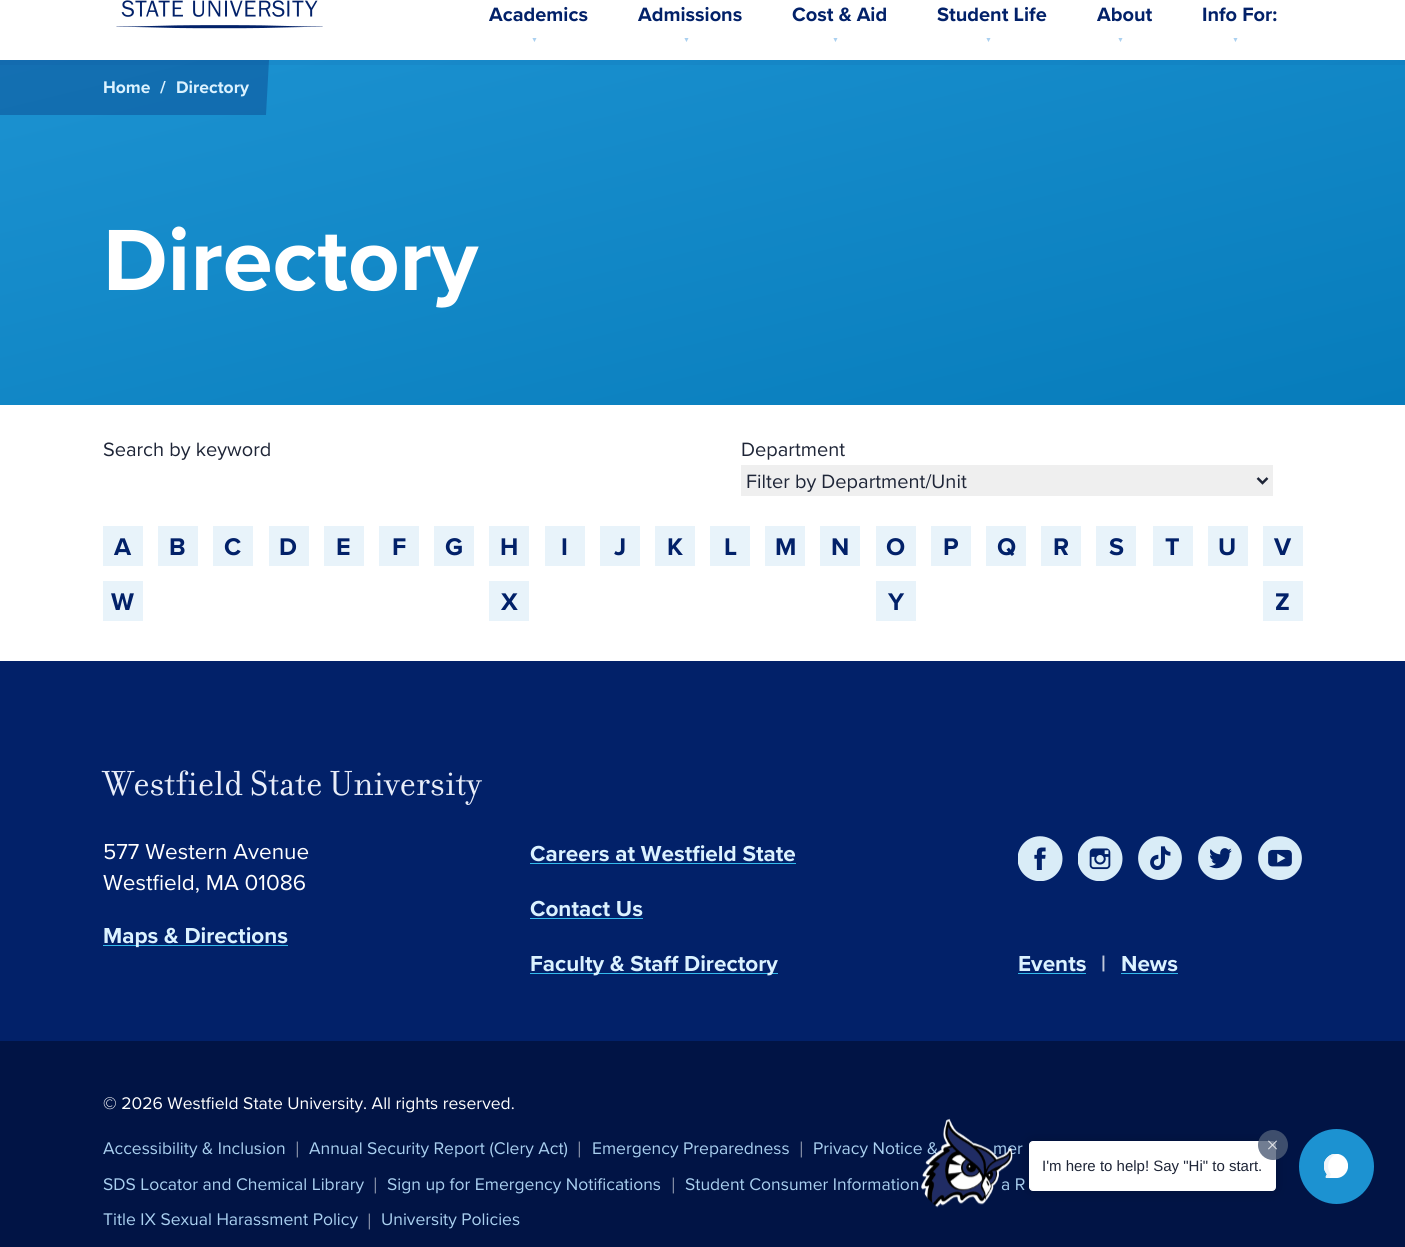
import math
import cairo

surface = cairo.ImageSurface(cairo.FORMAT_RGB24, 1405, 1247)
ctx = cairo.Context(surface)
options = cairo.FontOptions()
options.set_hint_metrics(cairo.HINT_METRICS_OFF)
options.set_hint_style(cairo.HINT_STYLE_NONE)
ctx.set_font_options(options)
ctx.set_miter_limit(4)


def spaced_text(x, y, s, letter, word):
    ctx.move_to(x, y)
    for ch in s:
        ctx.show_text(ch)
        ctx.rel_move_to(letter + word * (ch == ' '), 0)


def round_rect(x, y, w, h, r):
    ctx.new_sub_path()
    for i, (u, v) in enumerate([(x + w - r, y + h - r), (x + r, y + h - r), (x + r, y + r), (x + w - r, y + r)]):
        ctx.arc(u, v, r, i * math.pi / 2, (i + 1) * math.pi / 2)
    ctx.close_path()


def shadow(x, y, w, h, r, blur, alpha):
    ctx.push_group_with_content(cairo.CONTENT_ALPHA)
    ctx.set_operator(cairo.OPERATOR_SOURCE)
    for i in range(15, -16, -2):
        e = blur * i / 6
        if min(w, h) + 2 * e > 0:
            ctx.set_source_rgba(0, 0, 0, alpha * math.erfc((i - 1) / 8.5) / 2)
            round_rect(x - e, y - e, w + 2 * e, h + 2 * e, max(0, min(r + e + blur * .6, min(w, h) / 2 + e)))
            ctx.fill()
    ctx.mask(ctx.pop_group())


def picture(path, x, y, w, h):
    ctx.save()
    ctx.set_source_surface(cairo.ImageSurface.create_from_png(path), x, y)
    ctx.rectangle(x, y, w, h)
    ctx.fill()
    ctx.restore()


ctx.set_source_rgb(1, 1, 1)
ctx.paint()
gradient = cairo.LinearGradient(623, -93, 782, 558)
gradient.add_color_stop_rgba(0, 0.11, 0.573, 0.82, 1)
gradient.add_color_stop_rgba(1, 0.027, 0.486, 0.733, 1)
ctx.set_source(gradient)
ctx.rectangle(0, 60, 1405, 345)
ctx.fill()
ctx.set_source_rgba(0.008, 0.129, 0.412, 0.3)
ctx.new_path()
ctx.move_to(-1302, 60)
ctx.line_to(-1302, 115)
ctx.line_to(266, 115)
ctx.line_to(269, 60)
ctx.close_path()
ctx.fill()
ctx.set_source_rgba(0.008, 0.129, 0.412, 0.05)
ctx.rectangle(0, 60, 1405, 5)
ctx.fill()
picture("img1.png", 116, 0, 207, 29)
ctx.select_font_face("Proxima Nova", cairo.FONT_SLANT_NORMAL, cairo.FONT_WEIGHT_BOLD)
ctx.set_font_size(20)
ctx.set_source_rgb(0.008, 0.129, 0.412)
ctx.move_to(489, 21)
ctx.show_text("Academics")
ctx.select_font_face("Liberation Sans", cairo.FONT_SLANT_NORMAL, cairo.FONT_WEIGHT_BOLD)
ctx.set_font_size(7)
ctx.set_source_rgb(0.667, 0.816, 0.941)
spaced_text(531, 42, "▼", 8, 0)
ctx.select_font_face("Proxima Nova", cairo.FONT_SLANT_NORMAL, cairo.FONT_WEIGHT_BOLD)
ctx.set_font_size(20)
ctx.set_source_rgb(0.008, 0.129, 0.412)
ctx.move_to(638, 21)
ctx.show_text("Admissions")
ctx.select_font_face("Liberation Sans", cairo.FONT_SLANT_NORMAL, cairo.FONT_WEIGHT_BOLD)
ctx.set_font_size(7)
ctx.set_source_rgb(0.667, 0.816, 0.941)
spaced_text(683, 42, "▼", 8, 0)
ctx.select_font_face("Proxima Nova", cairo.FONT_SLANT_NORMAL, cairo.FONT_WEIGHT_BOLD)
ctx.set_font_size(20)
ctx.set_source_rgb(0.008, 0.129, 0.412)
ctx.move_to(792, 21)
ctx.show_text("Cost & Aid")
ctx.select_font_face("Liberation Sans", cairo.FONT_SLANT_NORMAL, cairo.FONT_WEIGHT_BOLD)
ctx.set_font_size(7)
ctx.set_source_rgb(0.667, 0.816, 0.941)
spaced_text(832, 42, "▼", 8, 0)
ctx.select_font_face("Proxima Nova", cairo.FONT_SLANT_NORMAL, cairo.FONT_WEIGHT_BOLD)
ctx.set_font_size(20)
ctx.set_source_rgb(0.008, 0.129, 0.412)
ctx.move_to(937, 21)
ctx.show_text("Student Life")
ctx.select_font_face("Liberation Sans", cairo.FONT_SLANT_NORMAL, cairo.FONT_WEIGHT_BOLD)
ctx.set_font_size(7)
ctx.set_source_rgb(0.667, 0.816, 0.941)
spaced_text(985, 42, "▼", 8, 0)
ctx.select_font_face("Proxima Nova", cairo.FONT_SLANT_NORMAL, cairo.FONT_WEIGHT_BOLD)
ctx.set_font_size(20)
ctx.set_source_rgb(0.008, 0.129, 0.412)
ctx.move_to(1097, 21)
ctx.show_text("About")
ctx.select_font_face("Liberation Sans", cairo.FONT_SLANT_NORMAL, cairo.FONT_WEIGHT_BOLD)
ctx.set_font_size(7)
ctx.set_source_rgb(0.667, 0.816, 0.941)
spaced_text(1117, 42, "▼", 8, 0)
ctx.select_font_face("Proxima Nova", cairo.FONT_SLANT_NORMAL, cairo.FONT_WEIGHT_BOLD)
ctx.set_font_size(20)
ctx.set_source_rgb(0.008, 0.129, 0.412)
ctx.move_to(1202, 21)
ctx.show_text("Info For:")
ctx.select_font_face("Liberation Sans", cairo.FONT_SLANT_NORMAL, cairo.FONT_WEIGHT_BOLD)
ctx.set_font_size(7)
ctx.set_source_rgb(0.667, 0.816, 0.941)
spaced_text(1232, 42, "▼", 8, 0)
ctx.select_font_face("Proxima Nova", cairo.FONT_SLANT_NORMAL, cairo.FONT_WEIGHT_BOLD)
ctx.set_font_size(17.5)
ctx.set_source_rgb(0.859, 0.949, 1)
ctx.move_to(103, 93)
ctx.show_text("Home")
ctx.move_to(160, 93)
ctx.show_text("/")
ctx.move_to(176, 93)
ctx.show_text("Directory")
ctx.set_font_size(90)
ctx.set_source_rgb(1, 1, 1)
ctx.move_to(103, 290)
ctx.show_text("Directory")
ctx.select_font_face("Proxima Nova")
ctx.set_font_size(20)
ctx.set_source_rgb(0.118, 0.145, 0.216)
ctx.move_to(103, 456)
ctx.show_text("Search by keyword")
ctx.move_to(741, 456)
ctx.show_text("Department")
ctx.set_source_rgb(0.937, 0.937, 0.937)
ctx.rectangle(741, 465, 532, 31)
ctx.fill()
ctx.new_path()
ctx.move_to(1257.5, 478)
ctx.line_to(1262.5, 483)
ctx.line_to(1267.5, 478)
ctx.set_source_rgb(0.118, 0.145, 0.216)
ctx.set_line_width(2.5)
ctx.stroke()
ctx.move_to(746, 488)
ctx.show_text("Filter by Department/Unit")
ctx.set_source_rgb(0.91, 0.953, 0.98)
ctx.rectangle(103, 526, 40, 40)
ctx.fill()
ctx.select_font_face("Proxima Nova", cairo.FONT_SLANT_NORMAL, cairo.FONT_WEIGHT_BOLD)
ctx.set_font_size(25)
ctx.set_source_rgb(0.008, 0.129, 0.412)
ctx.move_to(114, 555)
ctx.show_text("A")
ctx.set_source_rgb(0.91, 0.953, 0.98)
ctx.rectangle(158, 526, 40, 40)
ctx.fill()
ctx.set_source_rgb(0.008, 0.129, 0.412)
ctx.move_to(169, 555)
ctx.show_text("B")
ctx.set_source_rgb(0.91, 0.953, 0.98)
ctx.rectangle(213, 526, 40, 40)
ctx.fill()
ctx.set_source_rgb(0.008, 0.129, 0.412)
ctx.move_to(224, 555)
ctx.show_text("C")
ctx.set_source_rgb(0.91, 0.953, 0.98)
ctx.rectangle(269, 526, 40, 40)
ctx.fill()
ctx.set_source_rgb(0.008, 0.129, 0.412)
ctx.move_to(279, 555)
ctx.show_text("D")
ctx.set_source_rgb(0.91, 0.953, 0.98)
ctx.rectangle(324, 526, 40, 40)
ctx.fill()
ctx.set_source_rgb(0.008, 0.129, 0.412)
ctx.move_to(336, 555)
ctx.show_text("E")
ctx.set_source_rgb(0.91, 0.953, 0.98)
ctx.rectangle(379, 526, 40, 40)
ctx.fill()
ctx.set_source_rgb(0.008, 0.129, 0.412)
ctx.move_to(392, 555)
ctx.show_text("F")
ctx.set_source_rgb(0.91, 0.953, 0.98)
ctx.rectangle(434, 526, 40, 40)
ctx.fill()
ctx.set_source_rgb(0.008, 0.129, 0.412)
ctx.move_to(445, 555)
ctx.show_text("G")
ctx.set_source_rgb(0.91, 0.953, 0.98)
ctx.rectangle(489, 526, 40, 40)
ctx.fill()
ctx.set_source_rgb(0.008, 0.129, 0.412)
ctx.move_to(500, 555)
ctx.show_text("H")
ctx.set_source_rgb(0.91, 0.953, 0.98)
ctx.rectangle(545, 526, 40, 40)
ctx.fill()
ctx.set_source_rgb(0.008, 0.129, 0.412)
ctx.move_to(561, 555)
ctx.show_text("I")
ctx.set_source_rgb(0.91, 0.953, 0.98)
ctx.rectangle(600, 526, 40, 40)
ctx.fill()
ctx.set_source_rgb(0.008, 0.129, 0.412)
ctx.move_to(614, 555)
ctx.show_text("J")
ctx.set_source_rgb(0.91, 0.953, 0.98)
ctx.rectangle(655, 526, 40, 40)
ctx.fill()
ctx.set_source_rgb(0.008, 0.129, 0.412)
ctx.move_to(667, 555)
ctx.show_text("K")
ctx.set_source_rgb(0.91, 0.953, 0.98)
ctx.rectangle(710, 526, 40, 40)
ctx.fill()
ctx.set_source_rgb(0.008, 0.129, 0.412)
ctx.move_to(724, 555)
ctx.show_text("L")
ctx.set_source_rgb(0.91, 0.953, 0.98)
ctx.rectangle(765, 526, 40, 40)
ctx.fill()
ctx.set_source_rgb(0.008, 0.129, 0.412)
ctx.move_to(775, 555)
ctx.show_text("M")
ctx.set_source_rgb(0.91, 0.953, 0.98)
ctx.rectangle(820, 526, 40, 40)
ctx.fill()
ctx.set_source_rgb(0.008, 0.129, 0.412)
ctx.move_to(831, 555)
ctx.show_text("N")
ctx.set_source_rgb(0.91, 0.953, 0.98)
ctx.rectangle(876, 526, 40, 40)
ctx.fill()
ctx.set_source_rgb(0.008, 0.129, 0.412)
ctx.move_to(886, 555)
ctx.show_text("O")
ctx.set_source_rgb(0.91, 0.953, 0.98)
ctx.rectangle(931, 526, 40, 40)
ctx.fill()
ctx.set_source_rgb(0.008, 0.129, 0.412)
ctx.move_to(943, 555)
ctx.show_text("P")
ctx.set_source_rgb(0.91, 0.953, 0.98)
ctx.rectangle(986, 526, 40, 40)
ctx.fill()
ctx.set_source_rgb(0.008, 0.129, 0.412)
ctx.move_to(997, 555)
ctx.show_text("Q")
ctx.set_source_rgb(0.91, 0.953, 0.98)
ctx.rectangle(1041, 526, 40, 40)
ctx.fill()
ctx.set_source_rgb(0.008, 0.129, 0.412)
ctx.move_to(1053, 555)
ctx.show_text("R")
ctx.set_source_rgb(0.91, 0.953, 0.98)
ctx.rectangle(1096, 526, 40, 40)
ctx.fill()
ctx.set_source_rgb(0.008, 0.129, 0.412)
ctx.move_to(1109, 555)
ctx.show_text("S")
ctx.set_source_rgb(0.91, 0.953, 0.98)
ctx.rectangle(1153, 526, 40, 40)
ctx.fill()
ctx.set_source_rgb(0.008, 0.129, 0.412)
ctx.move_to(1165, 555)
ctx.show_text("T")
ctx.set_source_rgb(0.91, 0.953, 0.98)
ctx.rectangle(1208, 526, 40, 40)
ctx.fill()
ctx.set_source_rgb(0.008, 0.129, 0.412)
ctx.move_to(1218, 555)
ctx.show_text("U")
ctx.set_source_rgb(0.91, 0.953, 0.98)
ctx.rectangle(1263, 526, 40, 40)
ctx.fill()
ctx.set_source_rgb(0.008, 0.129, 0.412)
ctx.move_to(1274, 555)
ctx.show_text("V")
ctx.set_source_rgb(0.91, 0.953, 0.98)
ctx.rectangle(103, 581, 40, 40)
ctx.fill()
ctx.set_source_rgb(0.008, 0.129, 0.412)
ctx.move_to(111, 610)
ctx.show_text("W")
ctx.set_source_rgb(0.91, 0.953, 0.98)
ctx.rectangle(489, 581, 40, 40)
ctx.fill()
ctx.set_source_rgb(0.008, 0.129, 0.412)
ctx.move_to(501, 610)
ctx.show_text("X")
ctx.set_source_rgb(0.91, 0.953, 0.98)
ctx.rectangle(876, 581, 40, 40)
ctx.fill()
ctx.set_source_rgb(0.008, 0.129, 0.412)
ctx.move_to(888, 610)
ctx.show_text("Y")
ctx.set_source_rgb(0.91, 0.953, 0.98)
ctx.rectangle(1263, 581, 40, 40)
ctx.fill()
ctx.set_source_rgb(0.008, 0.129, 0.412)
ctx.move_to(1275, 610)
ctx.show_text("Z")
ctx.rectangle(0, 661, 1405, 380)
ctx.fill()
ctx.select_font_face("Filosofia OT")
ctx.set_font_size(37.5)
ctx.set_source_rgb(0.91, 0.929, 0.973)
ctx.move_to(103, 795)
ctx.show_text("Westfield State University")
ctx.select_font_face("Proxima Nova")
ctx.set_font_size(22.5)
ctx.set_source_rgb(1, 1, 1)
ctx.move_to(103, 859)
ctx.show_text("577 Western Avenue")
ctx.move_to(103, 890)
ctx.show_text("Westfield, MA 01086")
ctx.set_source_rgb(0.2, 0.733, 0.929)
ctx.rectangle(103, 945, 185, 1)
ctx.fill()
ctx.select_font_face("Proxima Nova", cairo.FONT_SLANT_NORMAL, cairo.FONT_WEIGHT_BOLD)
ctx.set_source_rgb(0.859, 0.949, 1)
ctx.move_to(103, 943)
ctx.show_text("Maps & Directions")
ctx.move_to(530, 861)
ctx.show_text("Careers at Westfield State")
ctx.set_source_rgb(0.2, 0.733, 0.929)
ctx.rectangle(530, 863, 266, 1)
ctx.fill()
ctx.set_source_rgb(0.859, 0.949, 1)
ctx.move_to(530, 916)
ctx.show_text("Contact Us")
ctx.set_source_rgb(0.2, 0.733, 0.929)
ctx.rectangle(530, 918, 113, 1)
ctx.fill()
ctx.rectangle(530, 973, 248, 1)
ctx.fill()
ctx.set_source_rgb(0.859, 0.949, 1)
ctx.move_to(530, 971)
ctx.show_text("Faculty & Staff Directory")
picture("img2.png", 1018, 836, 45, 45)
picture("img3.png", 1078, 836, 45, 45)
picture("img4.png", 1138, 836, 44, 45)
picture("img5.png", 1198, 836, 44, 45)
picture("img6.png", 1258, 836, 44, 45)
ctx.move_to(1018, 971)
ctx.show_text("Events")
ctx.set_source_rgb(0.2, 0.733, 0.929)
ctx.rectangle(1018, 973, 68, 1)
ctx.fill()
ctx.set_source_rgb(0.753, 0.784, 0.855)
ctx.move_to(1101, 971)
ctx.show_text("|")
ctx.set_source_rgb(0.859, 0.949, 1)
ctx.move_to(1121, 971)
ctx.show_text("News")
ctx.set_source_rgb(0.2, 0.733, 0.929)
ctx.rectangle(1121, 973, 57, 1)
ctx.fill()
ctx.set_source_rgb(0.004, 0.082, 0.271)
ctx.rectangle(0, 1041, 1405, 206)
ctx.fill()
ctx.select_font_face("Proxima Nova")
ctx.set_font_size(17.5)
ctx.set_source_rgb(1, 1, 1)
ctx.move_to(103, 1109)
ctx.show_text("© 2026 Westfield State University. All rights reserved.")
ctx.set_source_rgb(0.667, 0.816, 0.941)
ctx.move_to(103, 1154)
ctx.show_text("Accessibility & Inclusion")
ctx.set_font_size(22.5)
ctx.set_source_rgb(0.502, 0.541, 0.635)
ctx.move_to(295, 1157)
ctx.show_text("|")
ctx.set_font_size(17.5)
ctx.set_source_rgb(0.667, 0.816, 0.941)
ctx.move_to(309, 1154)
ctx.show_text("Annual Security Report (Clery Act)")
ctx.set_font_size(22.5)
ctx.set_source_rgb(0.502, 0.541, 0.635)
ctx.move_to(577, 1157)
ctx.show_text("|")
ctx.set_font_size(17.5)
ctx.set_source_rgb(0.667, 0.816, 0.941)
ctx.move_to(592, 1154)
ctx.show_text("Emergency Preparedness")
ctx.set_font_size(22.5)
ctx.set_source_rgb(0.502, 0.541, 0.635)
ctx.move_to(799, 1157)
ctx.show_text("|")
ctx.set_font_size(17.5)
ctx.set_source_rgb(0.667, 0.816, 0.941)
ctx.move_to(813, 1154)
ctx.show_text("Privacy Notice &")
ctx.move_to(993, 1154)
ctx.show_text("mer")
ctx.move_to(103, 1190)
ctx.show_text("SDS Locator and Chemical Library")
ctx.set_font_size(22.5)
ctx.set_source_rgb(0.502, 0.541, 0.635)
ctx.move_to(373, 1193)
ctx.show_text("|")
ctx.set_font_size(17.5)
ctx.set_source_rgb(0.667, 0.816, 0.941)
ctx.move_to(387, 1190)
ctx.show_text("Sign up for Emergency Notifications")
ctx.set_font_size(22.5)
ctx.set_source_rgb(0.502, 0.541, 0.635)
ctx.move_to(671, 1193)
ctx.show_text("|")
ctx.set_font_size(17.5)
ctx.set_source_rgb(0.667, 0.816, 0.941)
ctx.move_to(685, 1190)
ctx.show_text("Student Consumer Information")
ctx.move_to(1001, 1190)
ctx.show_text("a R")
ctx.move_to(103, 1225)
ctx.show_text("Title IX Sexual Harassment Policy")
ctx.set_font_size(22.5)
ctx.set_source_rgb(0.502, 0.541, 0.635)
ctx.move_to(367, 1229)
ctx.show_text("|")
ctx.set_font_size(17.5)
ctx.set_source_rgb(0.667, 0.816, 0.941)
ctx.move_to(381, 1225)
ctx.show_text("University Policies")
picture("img7.png", 921, 1118, 92, 90)
ctx.set_source_rgb(0, 0, 0)
shadow(1029, 1141, 247, 50, 4, 6, 0.2)
ctx.set_source_rgb(1, 1, 1)
round_rect(1029.5, 1141.5, 246, 49, 3.5)
ctx.fill_preserve()
ctx.set_line_width(1)
ctx.stroke()
ctx.set_source_rgba(0.306, 0.365, 0.467, 0.8)
ctx.arc(1273, 1145, 15, 0, 2 * math.pi)
ctx.fill()
picture("img8.png", 1268, 1140, 9, 10)
ctx.select_font_face("Liberation Sans")
ctx.set_font_size(15)
ctx.set_source_rgb(0.118, 0.145, 0.216)
ctx.move_to(1042, 1171)
ctx.show_text("I'm here to help! Say \"Hi\" to start.")
ctx.set_source_rgb(0.11, 0.573, 0.82)
ctx.new_path()
ctx.arc(1336.5, 1166.5, 37.5, 0, 2 * math.pi)
ctx.fill()
picture("img9.png", 1324, 1154, 24, 25)
surface.write_to_png("page.png")
